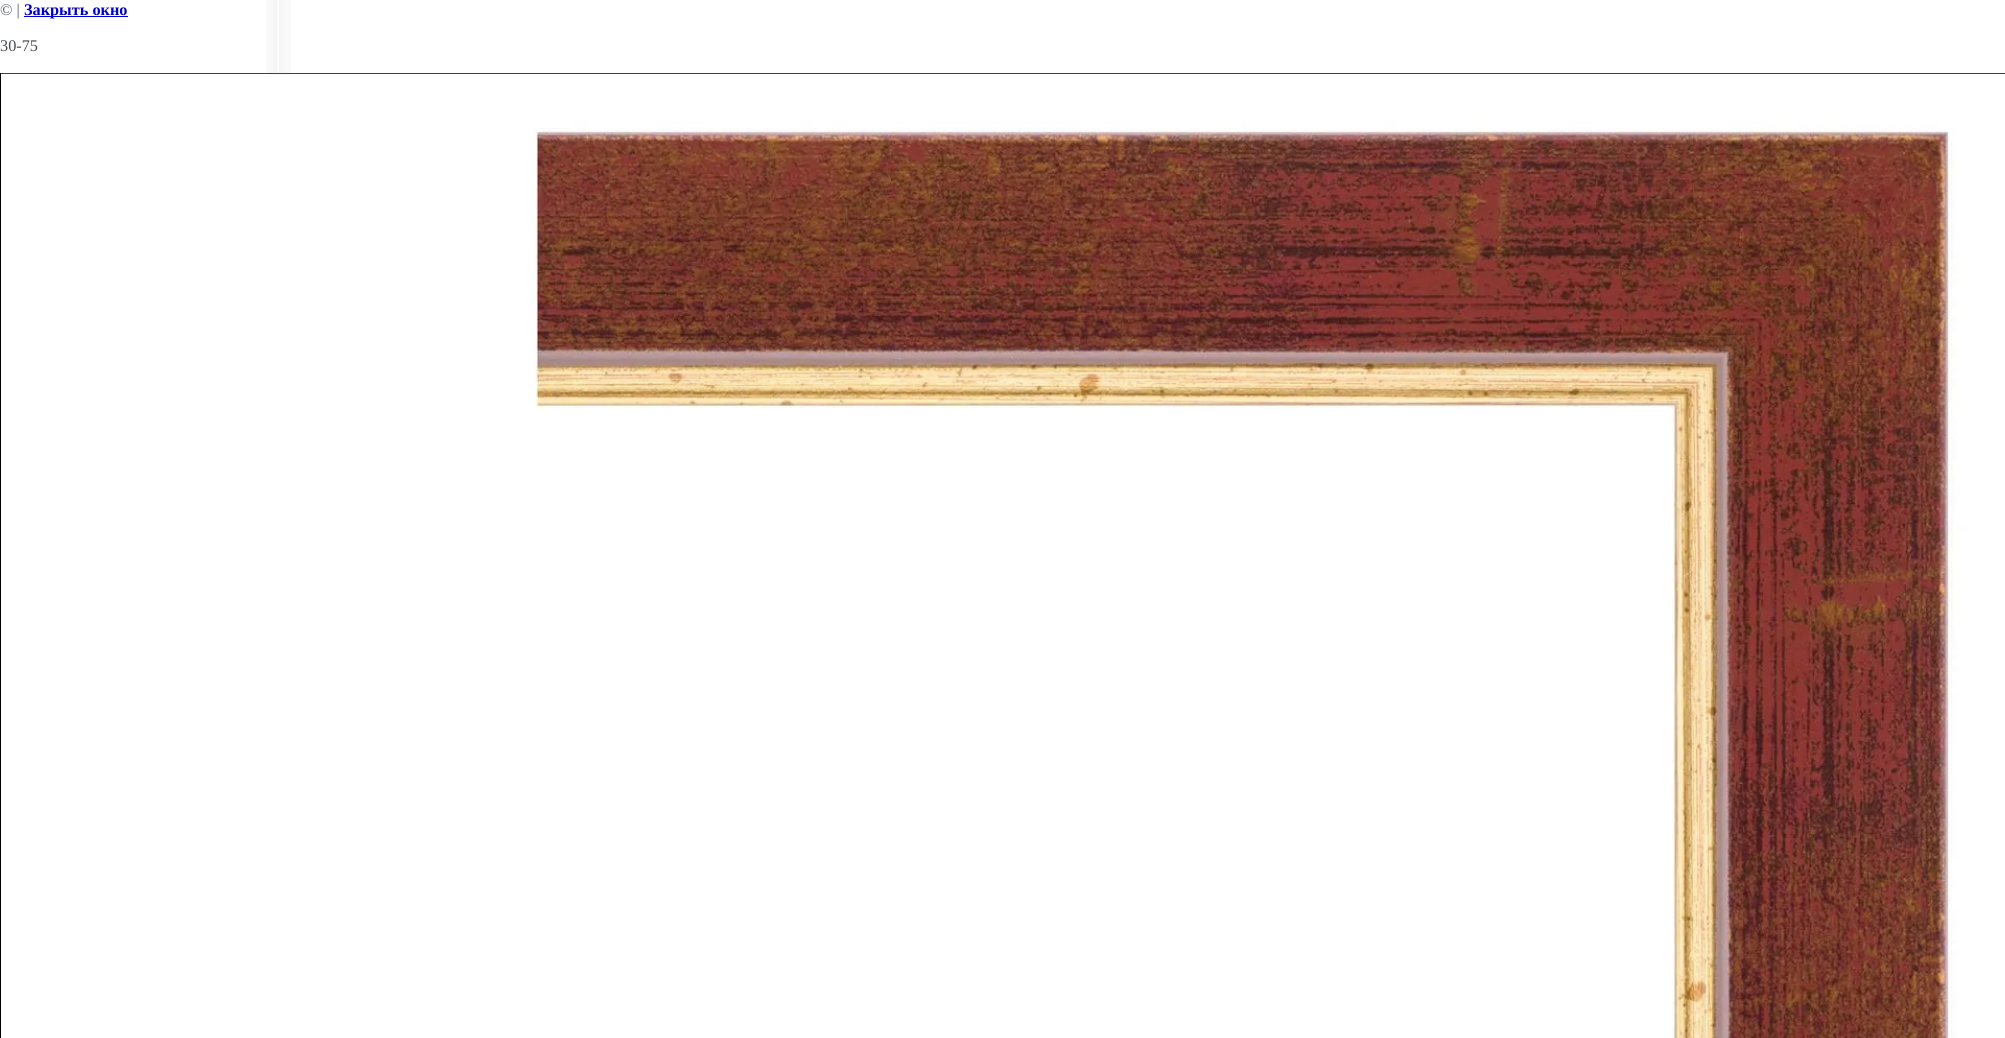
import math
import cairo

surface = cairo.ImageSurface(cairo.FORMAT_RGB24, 2005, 1038)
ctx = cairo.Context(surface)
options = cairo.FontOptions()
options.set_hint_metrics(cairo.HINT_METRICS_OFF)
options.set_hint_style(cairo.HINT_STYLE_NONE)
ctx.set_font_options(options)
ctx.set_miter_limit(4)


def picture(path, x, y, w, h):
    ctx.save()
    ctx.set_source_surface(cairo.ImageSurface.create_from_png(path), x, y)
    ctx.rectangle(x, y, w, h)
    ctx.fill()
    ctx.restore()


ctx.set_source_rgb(1, 1, 1)
ctx.paint()
picture("img1.png", 266, 0, 25, 73)
ctx.select_font_face("Liberation Serif")
ctx.set_font_size(16.25)
ctx.set_source_rgb(0.341, 0.361, 0.38)
ctx.move_to(0, 15)
ctx.show_text("© |")
ctx.set_source_rgb(0, 0, 0.8)
ctx.rectangle(24, 16, 104, 1)
ctx.fill()
ctx.select_font_face("Liberation Serif", cairo.FONT_SLANT_NORMAL, cairo.FONT_WEIGHT_BOLD)
ctx.move_to(24, 15)
ctx.show_text("Закрыть окно")
ctx.select_font_face("Liberation Serif")
ctx.set_source_rgb(0.278, 0.294, 0.314)
ctx.move_to(0, 51)
ctx.show_text("30-75")
ctx.rectangle(0.5, 73.5, 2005, 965)
ctx.set_source_rgb(0, 0, 0)
ctx.set_line_width(1)
ctx.stroke()
picture("img2.png", 1, 73, 2004, 965)
surface.write_to_png("page.png")
